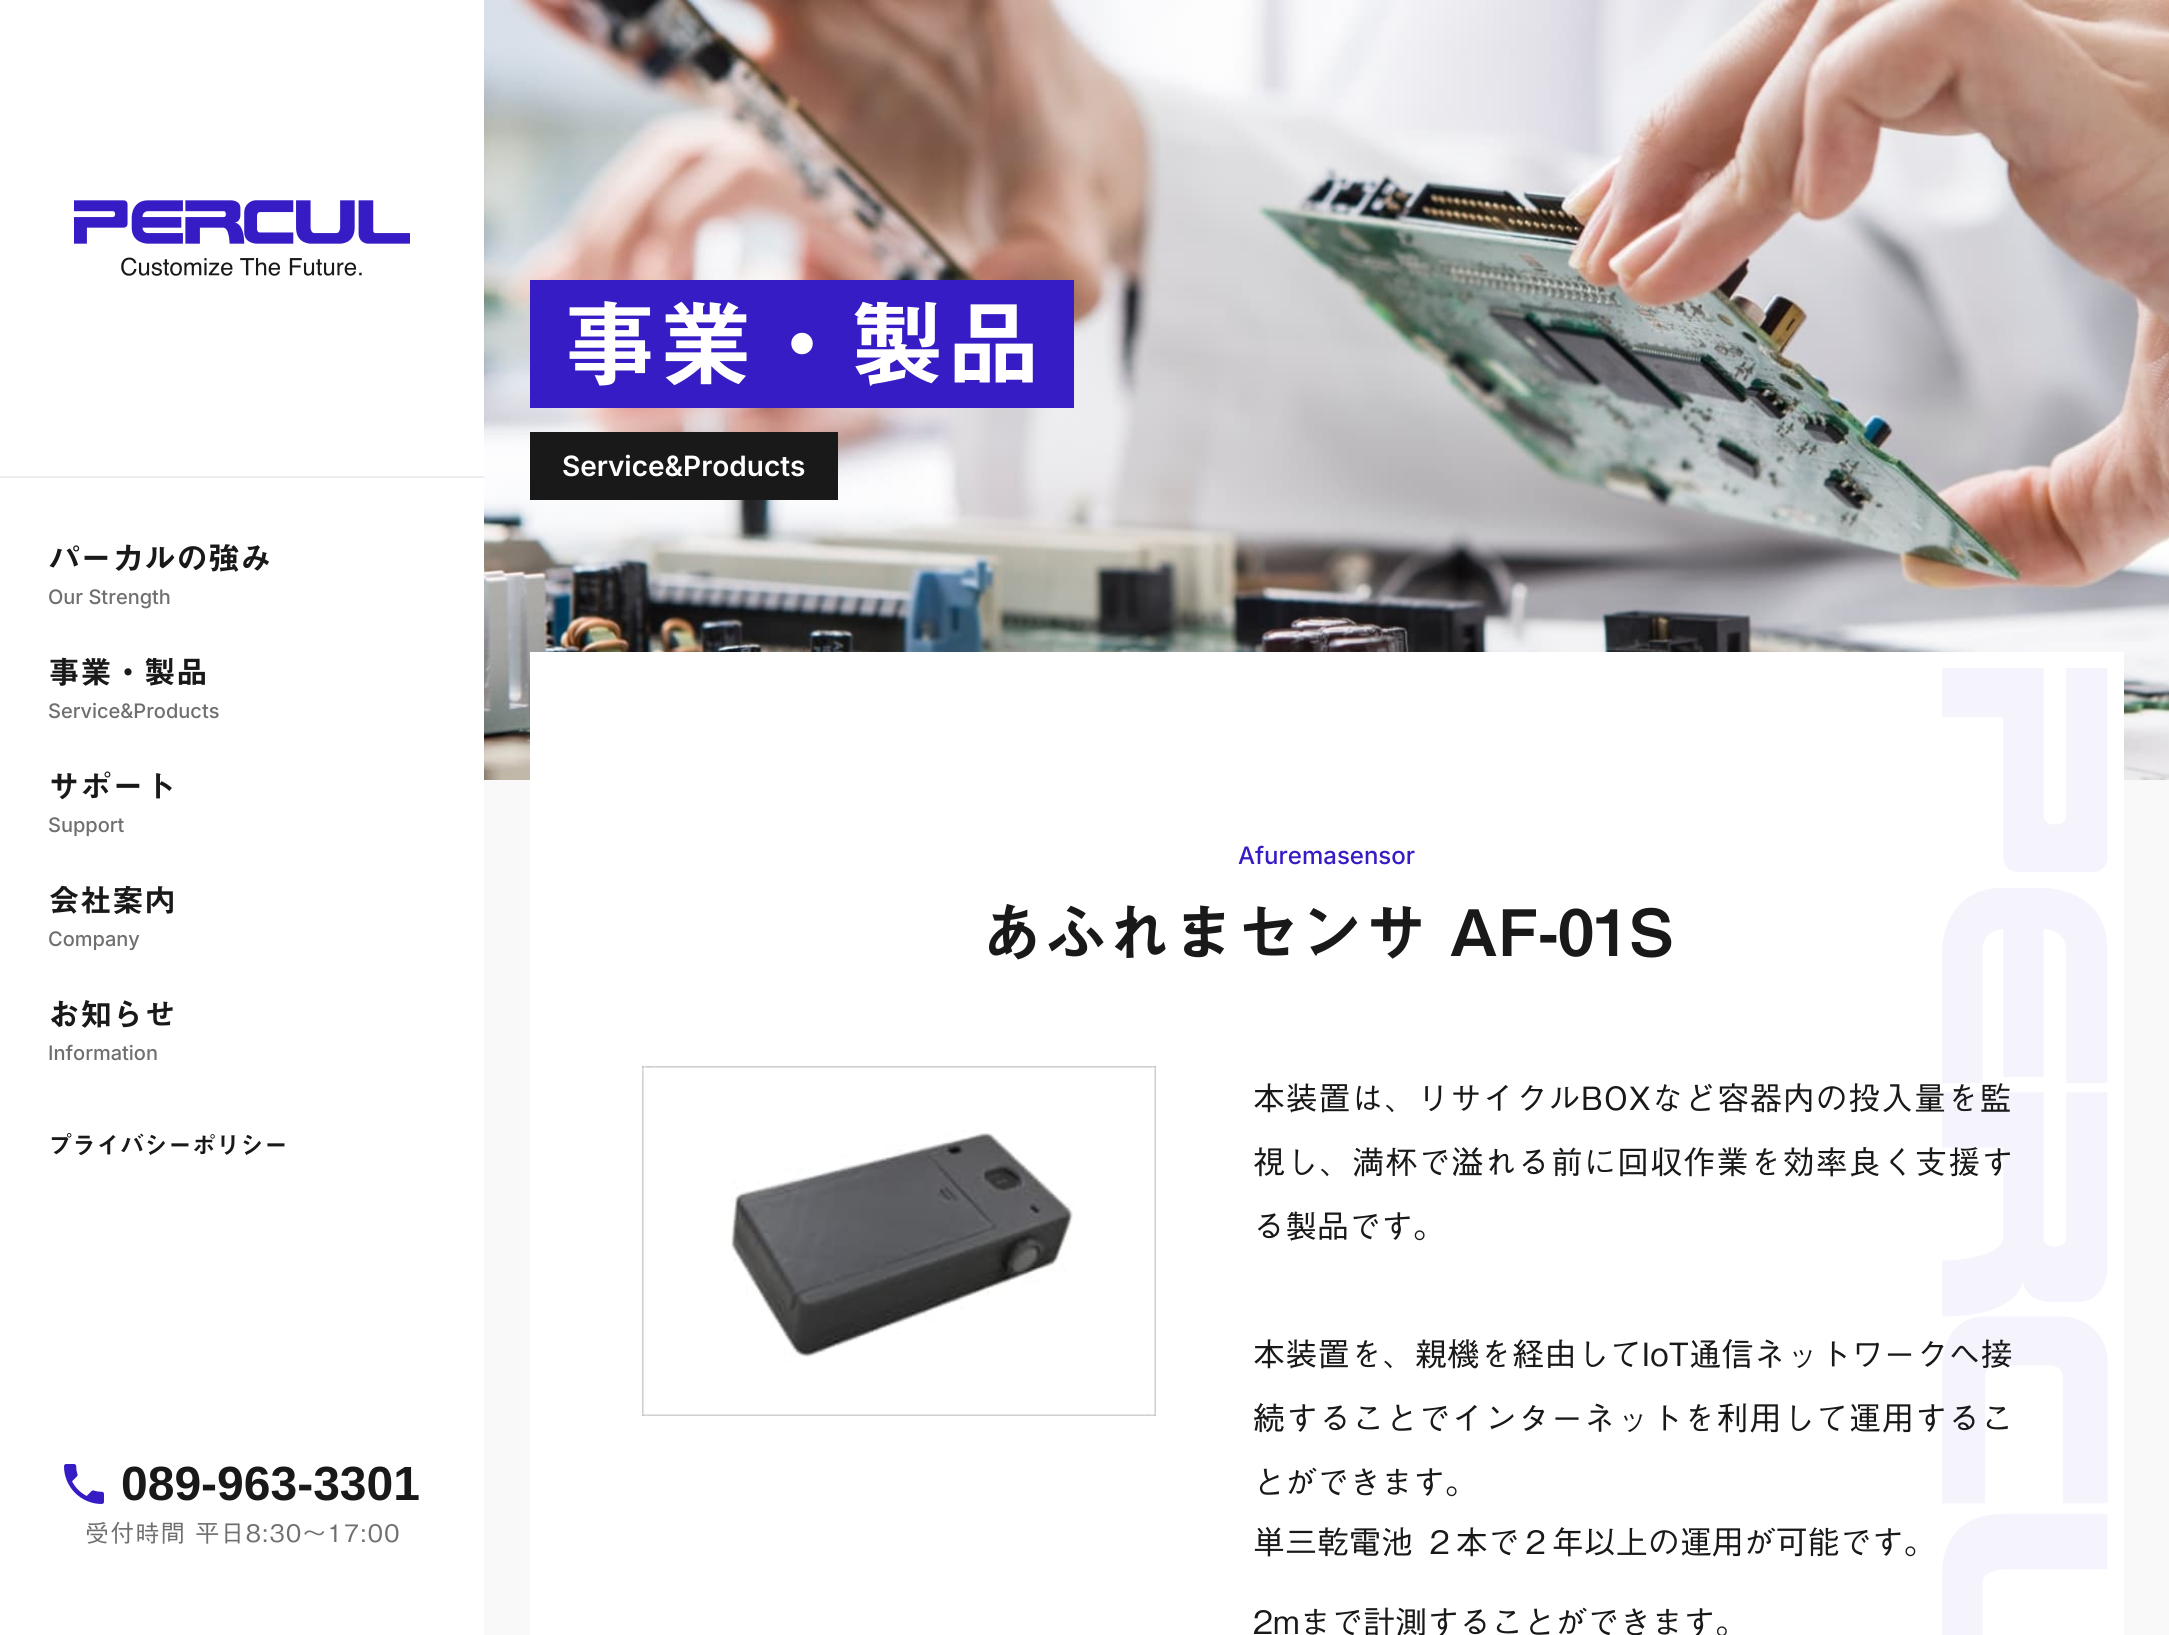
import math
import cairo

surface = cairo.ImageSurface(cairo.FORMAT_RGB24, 2169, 1635)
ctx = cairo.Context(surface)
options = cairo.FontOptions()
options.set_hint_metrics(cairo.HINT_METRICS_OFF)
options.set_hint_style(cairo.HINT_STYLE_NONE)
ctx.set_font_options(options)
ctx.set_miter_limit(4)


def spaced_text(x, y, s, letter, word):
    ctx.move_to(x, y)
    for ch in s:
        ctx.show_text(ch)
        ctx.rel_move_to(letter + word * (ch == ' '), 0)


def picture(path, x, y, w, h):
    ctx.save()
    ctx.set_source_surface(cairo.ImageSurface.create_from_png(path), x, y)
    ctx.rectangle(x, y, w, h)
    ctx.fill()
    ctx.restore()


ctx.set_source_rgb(0.976, 0.976, 0.976)
ctx.paint()
ctx.set_source_rgb(1, 1, 1)
ctx.rectangle(0, 0, 484, 1635)
ctx.fill()
picture("img1.png", 74, 200, 336, 76)
ctx.set_source_rgb(0.929, 0.929, 0.929)
ctx.rectangle(0, 476, 484, 2)
ctx.fill()
ctx.select_font_face("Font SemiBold")
ctx.set_font_size(32)
ctx.set_source_rgb(0.098, 0.098, 0.098)
ctx.move_to(48, 570)
ctx.show_text("パーカルの強み")
ctx.select_font_face("Inter Medium")
ctx.set_font_size(20)
ctx.set_source_rgb(0.435, 0.435, 0.435)
ctx.move_to(48, 604)
ctx.show_text("Our Strength")
ctx.select_font_face("Font SemiBold")
ctx.set_font_size(32)
ctx.set_source_rgb(0.098, 0.098, 0.098)
ctx.move_to(48, 684)
ctx.show_text("事業・製品")
ctx.select_font_face("Inter Medium")
ctx.set_font_size(20)
ctx.set_source_rgb(0.435, 0.435, 0.435)
ctx.move_to(48, 718)
ctx.show_text("Service&Products")
ctx.select_font_face("Font SemiBold")
ctx.set_font_size(32)
ctx.set_source_rgb(0.098, 0.098, 0.098)
ctx.move_to(48, 798)
ctx.show_text("サポート")
ctx.select_font_face("Inter Medium")
ctx.set_font_size(20)
ctx.set_source_rgb(0.435, 0.435, 0.435)
ctx.move_to(48, 832)
ctx.show_text("Support")
ctx.select_font_face("Font SemiBold")
ctx.set_font_size(32)
ctx.set_source_rgb(0.098, 0.098, 0.098)
ctx.move_to(48, 912)
ctx.show_text("会社案内")
ctx.select_font_face("Inter Medium")
ctx.set_font_size(20)
ctx.set_source_rgb(0.435, 0.435, 0.435)
ctx.move_to(48, 946)
ctx.show_text("Company")
ctx.select_font_face("Font SemiBold")
ctx.set_font_size(32)
ctx.set_source_rgb(0.098, 0.098, 0.098)
ctx.move_to(48, 1026)
ctx.show_text("お知らせ")
ctx.select_font_face("Inter Medium")
ctx.set_font_size(20)
ctx.set_source_rgb(0.435, 0.435, 0.435)
ctx.move_to(48, 1060)
ctx.show_text("Information")
ctx.select_font_face("Font SemiBold")
ctx.set_font_size(24)
ctx.set_source_rgb(0.098, 0.098, 0.098)
ctx.move_to(48, 1154)
ctx.show_text("プライバシーポリシー")
picture("img2.png", 64, 1464, 40, 40)
ctx.select_font_face("Liberation Sans", cairo.FONT_SLANT_NORMAL, cairo.FONT_WEIGHT_BOLD)
ctx.set_font_size(48)
ctx.move_to(121, 1500)
ctx.show_text("089-963-3301")
ctx.select_font_face("Font")
ctx.set_font_size(24)
ctx.set_source_rgb(0.435, 0.435, 0.435)
spaced_text(85, 1542, "受付時間 平日8:30〜17:00", 1.25, 0)
picture("img3.png", 484, 0, 1685, 780)
ctx.set_source_rgb(0.212, 0.11, 0.769)
ctx.rectangle(530, 280, 544, 128)
ctx.fill()
ctx.select_font_face("Font SemiBold")
ctx.set_font_size(96)
ctx.set_source_rgb(1, 1, 1)
ctx.move_to(562, 380)
ctx.show_text("事業・製品")
ctx.set_source_rgb(0.098, 0.098, 0.098)
ctx.rectangle(530, 432, 308, 68)
ctx.fill()
ctx.select_font_face("Inter SemiBold")
ctx.set_font_size(28)
ctx.set_source_rgb(1, 1, 1)
ctx.move_to(562, 476)
ctx.show_text("Service&Products")
ctx.rectangle(530, 652, 1594, 983)
ctx.fill()
picture("img4.png", 1942, 668, 166, 967)
ctx.select_font_face("Inter Medium")
ctx.set_font_size(24)
ctx.set_source_rgb(0.212, 0.11, 0.769)
ctx.move_to(1238, 864)
ctx.show_text("Afuremasensor")
ctx.select_font_face("Font SemiBold")
ctx.set_font_size(64)
ctx.set_source_rgb(0.098, 0.098, 0.098)
ctx.move_to(980, 956)
ctx.show_text("あふれまセンサ AF-01S")
picture("img5.png", 642, 1066, 514, 350)
ctx.select_font_face("Font")
ctx.set_font_size(32)
spaced_text(1253, 1110, "本装置は、リサイクルBOXなど容器内の投入量を監", 0.8, 0)
spaced_text(1253, 1174, "視し、満杯で溢れる前に回収作業を効率良く支援す", 1.1, 0)
ctx.move_to(1253, 1238)
ctx.show_text("る製品です。")
spaced_text(1253, 1366, "本装置を、親機を経由してIoT通信ネットワークへ接", 0.4, 0)
spaced_text(1253, 1430, "続することでインターネットを利用して運用するこ", 1.1, 0)
ctx.move_to(1253, 1494)
ctx.show_text("とができます。")
ctx.move_to(1253, 1554)
ctx.show_text("単三乾電池 ２本で２年以上の運用が可能です。")
ctx.move_to(1253, 1634)
ctx.show_text("2mまで計測することができます。")
surface.write_to_png("page.png")
